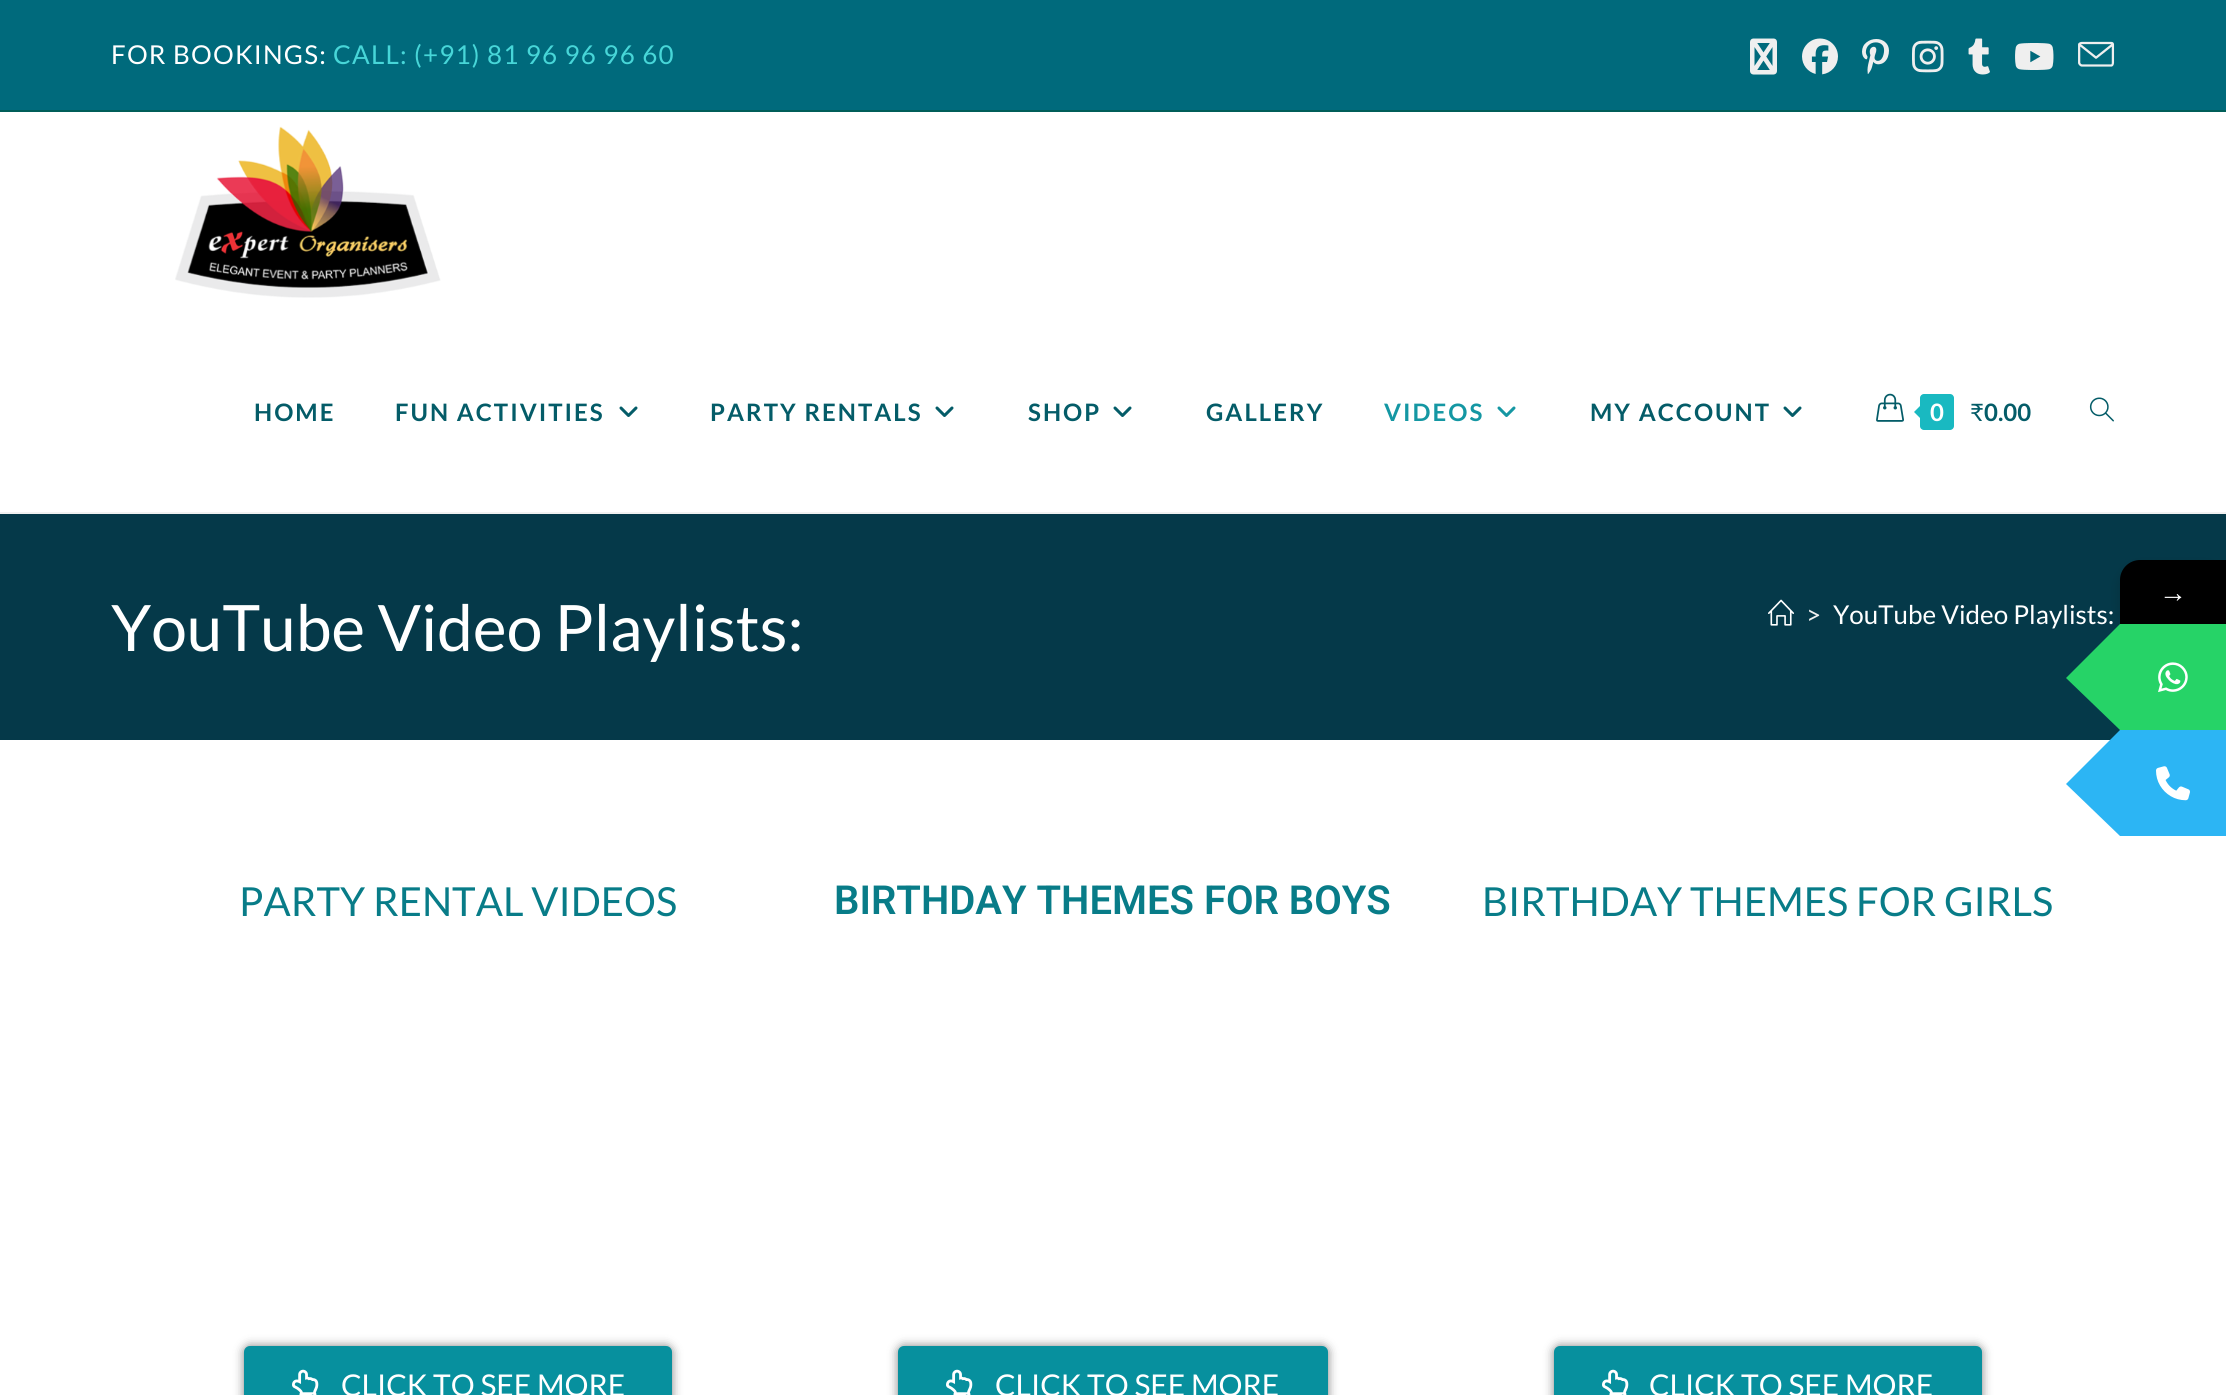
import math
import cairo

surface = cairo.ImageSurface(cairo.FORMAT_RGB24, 2226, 1395)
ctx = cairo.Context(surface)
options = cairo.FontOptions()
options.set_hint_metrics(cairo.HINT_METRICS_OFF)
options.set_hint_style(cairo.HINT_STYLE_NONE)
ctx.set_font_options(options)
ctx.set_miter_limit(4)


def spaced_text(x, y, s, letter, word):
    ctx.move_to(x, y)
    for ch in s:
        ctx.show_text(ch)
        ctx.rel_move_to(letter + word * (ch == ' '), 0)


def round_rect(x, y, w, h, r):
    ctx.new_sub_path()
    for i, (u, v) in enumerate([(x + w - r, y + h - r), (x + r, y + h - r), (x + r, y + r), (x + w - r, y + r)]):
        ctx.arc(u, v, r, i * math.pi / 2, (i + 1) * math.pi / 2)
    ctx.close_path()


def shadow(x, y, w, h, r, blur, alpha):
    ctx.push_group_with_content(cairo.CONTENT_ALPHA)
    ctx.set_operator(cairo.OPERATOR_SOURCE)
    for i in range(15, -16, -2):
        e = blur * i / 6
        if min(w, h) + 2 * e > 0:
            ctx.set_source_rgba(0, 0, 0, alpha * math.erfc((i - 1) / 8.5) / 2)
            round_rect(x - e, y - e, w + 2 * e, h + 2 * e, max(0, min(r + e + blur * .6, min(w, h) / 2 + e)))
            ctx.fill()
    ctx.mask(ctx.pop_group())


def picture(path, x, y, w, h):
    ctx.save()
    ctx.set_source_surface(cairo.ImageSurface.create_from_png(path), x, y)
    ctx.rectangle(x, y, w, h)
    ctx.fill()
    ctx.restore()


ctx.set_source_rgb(1, 1, 1)
ctx.paint()
ctx.set_source_rgb(0, 0.416, 0.486)
ctx.rectangle(0, 0, 2226, 110)
ctx.fill()
ctx.set_source_rgb(0, 0.369, 0.349)
ctx.rectangle(0, 110, 2226, 2)
ctx.fill()
ctx.select_font_face("Lato")
ctx.set_font_size(26)
ctx.set_source_rgb(1, 1, 1)
spaced_text(111, 64, "FOR BOOKINGS:", 1.2, 0)
ctx.set_source_rgb(0.278, 0.839, 0.847)
spaced_text(333, 64, "CALL: (+91) 81 96 96 96 60", 1.2, 0)
picture("img1.png", 1750, 38, 27, 37)
picture("img2.png", 1802, 38, 36, 37)
picture("img3.png", 1862, 39, 27, 35)
picture("img4.png", 1912, 40, 32, 33)
picture("img5.png", 1968, 38, 22, 37)
picture("img6.png", 2015, 43, 39, 27)
picture("img7.png", 2078, 41, 37, 26)
ctx.set_source_rgb(0.945, 0.945, 0.945)
ctx.rectangle(0, 512, 2226, 2)
ctx.fill()
picture("img8.png", 175, 126, 266, 172)
ctx.select_font_face("Lato", cairo.FONT_SLANT_NORMAL, cairo.FONT_WEIGHT_BOLD)
ctx.set_font_size(24)
ctx.set_source_rgb(0.016, 0.361, 0.408)
spaced_text(254, 421, "HOME", 2, 0)
spaced_text(395, 421, "FUN ACTIVITIES", 2, 0)
picture("img9.png", 619, 406, 19, 11)
spaced_text(710, 421, "PARTY RENTALS", 2, 0)
picture("img9.png", 935, 406, 19, 11)
spaced_text(1028, 421, "SHOP", 2, 0)
picture("img9.png", 1113, 406, 19, 11)
spaced_text(1206, 421, "GALLERY", 2, 0)
ctx.set_source_rgb(0.082, 0.592, 0.639)
spaced_text(1384, 421, "VIDEOS", 2, 0)
picture("img10.png", 1497, 406, 19, 11)
ctx.set_source_rgb(0.016, 0.361, 0.408)
spaced_text(1590, 421, "MY ACCOUNT", 2, 0)
picture("img9.png", 1783, 406, 19, 11)
picture("img11.png", 1876, 393, 28, 29)
ctx.set_source_rgb(0.098, 0.725, 0.757)
round_rect(1920, 394, 34, 36, 4)
ctx.fill()
ctx.new_path()
ctx.move_to(1924, 402)
ctx.line_to(1924, 422)
ctx.line_to(1914, 412)
ctx.close_path()
ctx.fill()
ctx.set_source_rgb(1, 1, 1)
ctx.move_to(1930, 421)
ctx.show_text("0")
ctx.select_font_face("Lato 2")
ctx.set_source_rgb(0.016, 0.361, 0.408)
ctx.move_to(1970, 421)
ctx.show_text("₹")
ctx.select_font_face("Lato", cairo.FONT_SLANT_NORMAL, cairo.FONT_WEIGHT_BOLD)
ctx.move_to(1984, 421)
ctx.show_text("0.00")
picture("img12.png", 2089, 397, 25, 25)
ctx.set_source_rgb(0.02, 0.224, 0.286)
ctx.rectangle(0, 514, 2226, 226)
ctx.fill()
ctx.select_font_face("Lato")
ctx.set_font_size(64)
ctx.set_source_rgb(1, 1, 1)
ctx.move_to(111, 651)
ctx.show_text("YouTube Video Playlists:")
picture("img13.png", 1768, 599, 26, 27)
ctx.set_font_size(26)
ctx.set_source_rgb(0.937, 0.937, 0.937)
ctx.move_to(1806, 624)
ctx.show_text(">")
ctx.set_source_rgb(1, 1, 1)
ctx.move_to(1833, 624)
ctx.show_text("YouTube Video Playlists:")
ctx.set_font_size(40)
ctx.set_source_rgb(0.035, 0.486, 0.533)
ctx.move_to(239, 916)
ctx.show_text("PARTY RENTAL VIDEOS")
ctx.set_source_rgb(0, 0, 0)
shadow(244, 1346, 428, 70, 6, 5, 0.5)
ctx.set_source_rgb(0.031, 0.565, 0.62)
round_rect(244, 1346, 428, 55, 6)
ctx.fill()
picture("img14.png", 292, 1369, 27, 26)
ctx.set_font_size(30)
ctx.set_source_rgb(1, 1, 1)
ctx.move_to(341, 1396)
ctx.show_text("CLICK TO SEE MORE")
ctx.select_font_face("Roboto SemiBold")
ctx.set_font_size(40)
ctx.set_source_rgb(0.035, 0.486, 0.533)
ctx.move_to(834, 914)
ctx.show_text("BIRTHDAY THEMES FOR BOYS")
ctx.set_source_rgb(0, 0, 0)
shadow(898, 1346, 430, 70, 6, 5, 0.5)
ctx.set_source_rgb(0.031, 0.565, 0.62)
round_rect(898, 1346, 430, 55, 6)
ctx.fill()
picture("img14.png", 946, 1369, 27, 26)
ctx.select_font_face("Lato")
ctx.set_font_size(30)
ctx.set_source_rgb(1, 1, 1)
ctx.move_to(995, 1396)
ctx.show_text("CLICK TO SEE MORE")
ctx.set_font_size(40)
ctx.set_source_rgb(0.035, 0.486, 0.533)
ctx.move_to(1482, 916)
ctx.show_text("BIRTHDAY THEMES FOR GIRLS")
ctx.set_source_rgb(0, 0, 0)
shadow(1554, 1346, 428, 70, 6, 5, 0.5)
ctx.set_source_rgb(0.031, 0.565, 0.62)
round_rect(1554, 1346, 428, 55, 6)
ctx.fill()
picture("img14.png", 1602, 1369, 27, 26)
ctx.set_font_size(30)
ctx.set_source_rgb(1, 1, 1)
ctx.move_to(1649, 1396)
ctx.show_text("CLICK TO SEE MORE")
ctx.set_source_rgb(0, 0, 0)
shadow(2120, 566, 106, 64, 20, 6, 0.16)
ctx.set_source_rgb(0, 0, 0)
ctx.new_path()
ctx.move_to(2140, 560)
ctx.line_to(2226, 560)
ctx.line_to(2226, 624)
ctx.line_to(2120, 624)
ctx.line_to(2120, 580)
ctx.curve_to(2120, 569, 2129, 560, 2140, 560)
ctx.close_path()
ctx.fill()
ctx.select_font_face("Liberation Serif")
ctx.set_font_size(28)
ctx.set_source_rgb(1, 1, 1)
ctx.move_to(2159, 602)
ctx.show_text("→")
ctx.set_source_rgb(0.149, 0.827, 0.404)
ctx.rectangle(2120, 624, 106, 106)
ctx.fill()
ctx.new_path()
ctx.move_to(2120, 624)
ctx.line_to(2120, 730)
ctx.line_to(2066, 678)
ctx.close_path()
ctx.fill()
picture("img15.png", 2158, 662, 30, 31)
ctx.set_source_rgb(0.173, 0.71, 0.957)
ctx.rectangle(2120, 730, 106, 106)
ctx.fill()
ctx.new_path()
ctx.move_to(2120, 730)
ctx.line_to(2120, 836)
ctx.line_to(2066, 784)
ctx.close_path()
ctx.fill()
picture("img16.png", 2156, 766, 34, 35)
surface.write_to_png("page.png")
